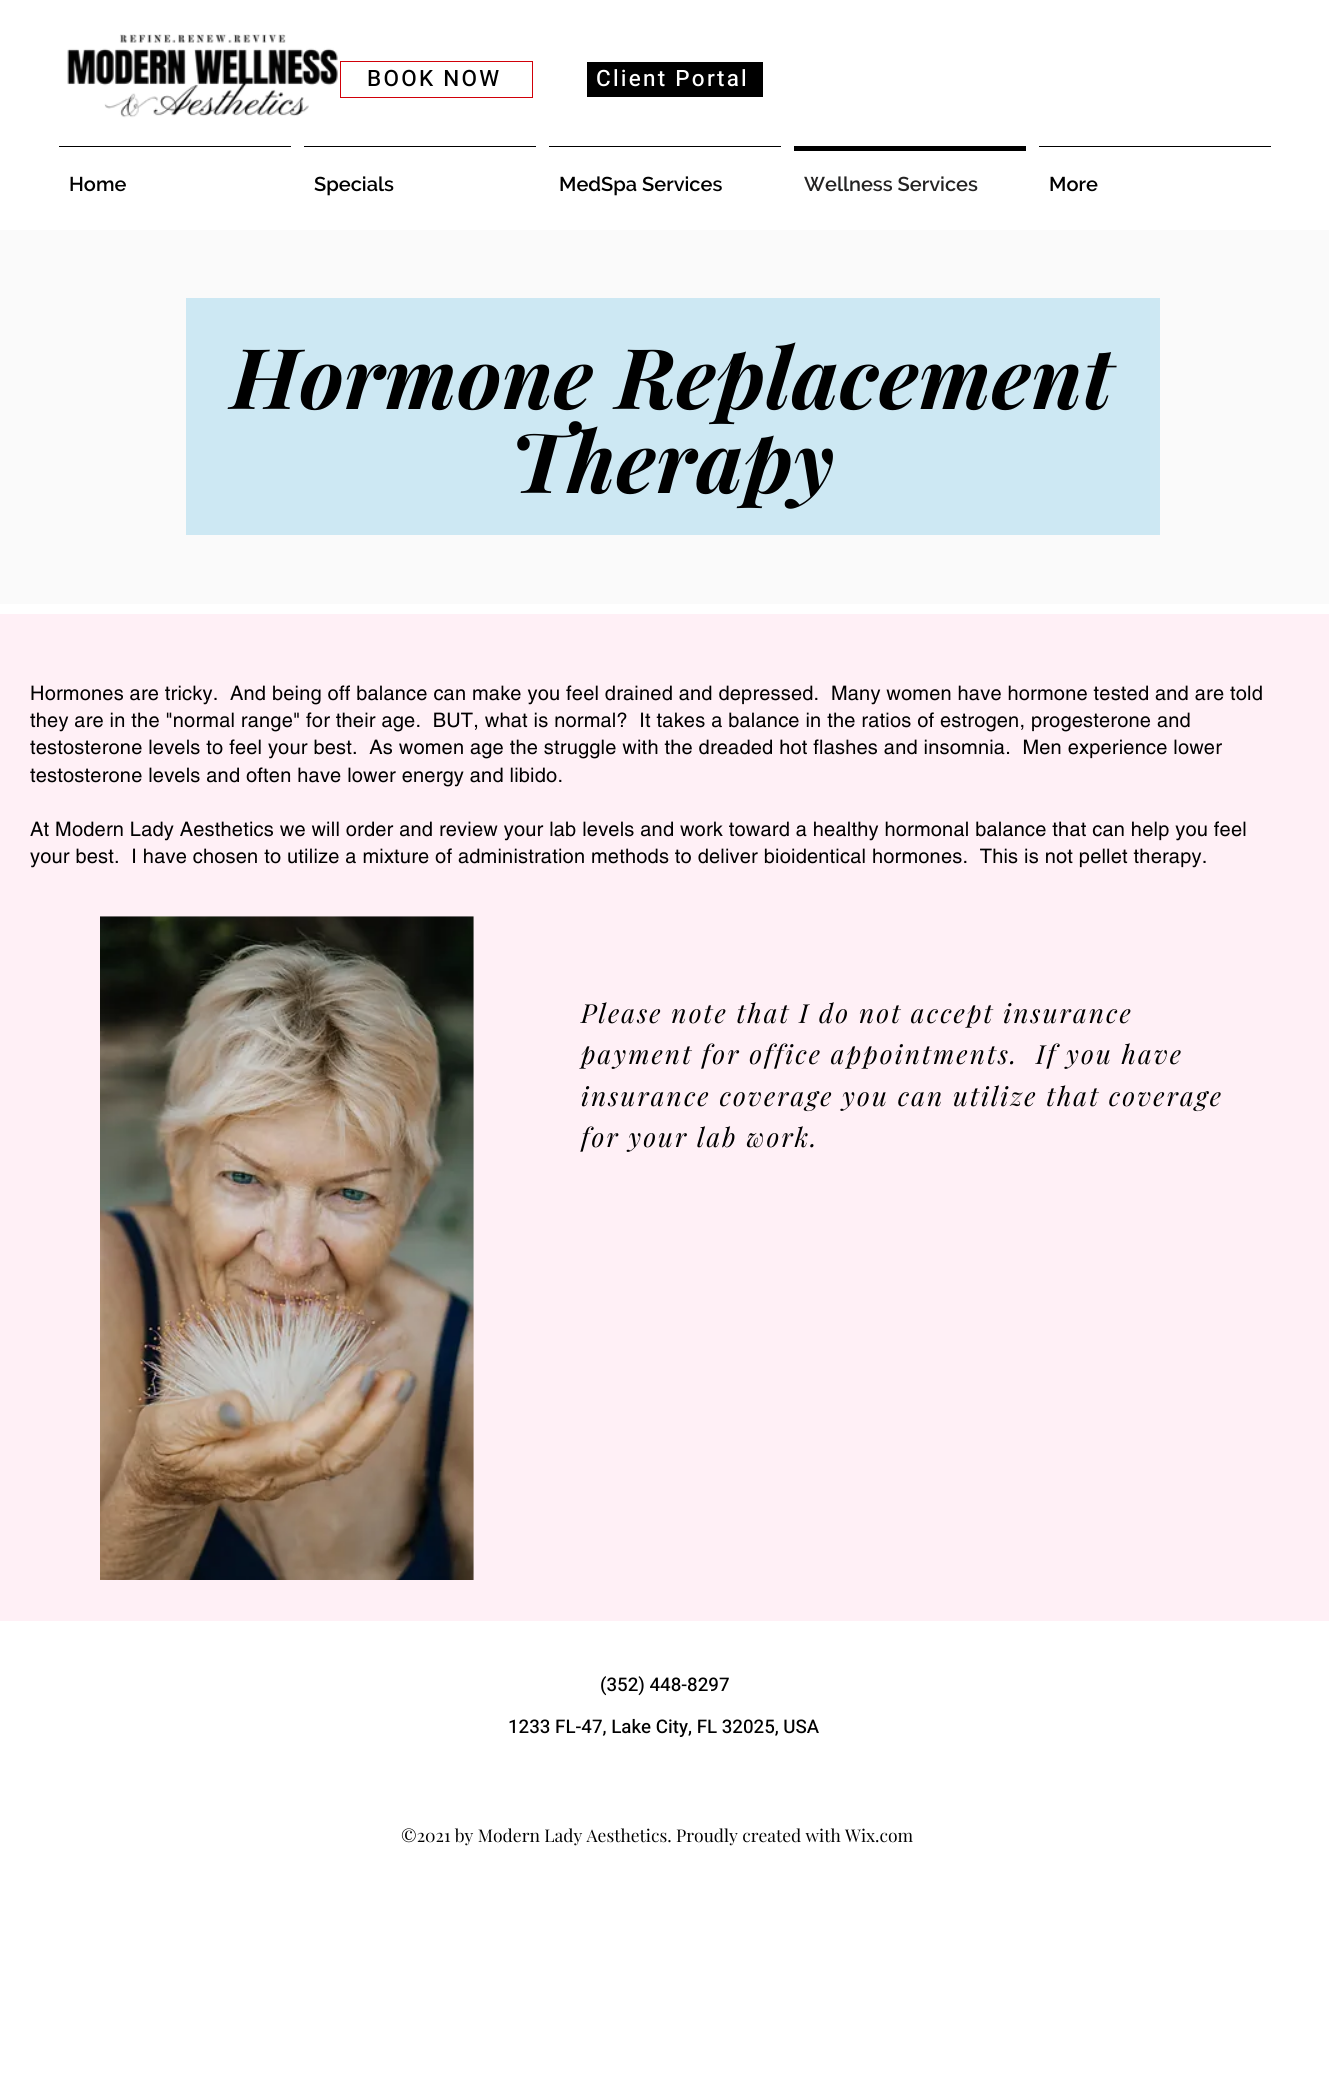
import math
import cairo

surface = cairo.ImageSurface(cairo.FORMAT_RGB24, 1329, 2093)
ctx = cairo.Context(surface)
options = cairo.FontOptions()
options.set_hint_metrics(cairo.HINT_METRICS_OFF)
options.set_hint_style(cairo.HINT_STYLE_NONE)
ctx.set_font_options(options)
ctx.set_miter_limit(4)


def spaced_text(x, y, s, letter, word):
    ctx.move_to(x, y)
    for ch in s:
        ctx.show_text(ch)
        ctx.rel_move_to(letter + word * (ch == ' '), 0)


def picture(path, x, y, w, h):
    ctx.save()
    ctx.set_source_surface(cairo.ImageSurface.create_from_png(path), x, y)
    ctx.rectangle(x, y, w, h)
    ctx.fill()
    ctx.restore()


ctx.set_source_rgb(1, 1, 1)
ctx.paint()
picture("img1.png", 67, 34, 271, 84)
ctx.rectangle(340.5, 61.5, 192, 36)
ctx.set_source_rgb(0.82, 0, 0.039)
ctx.set_line_width(1)
ctx.stroke()
ctx.select_font_face("Heebo Medium")
ctx.set_font_size(22.5)
ctx.set_source_rgb(0, 0, 0)
spaced_text(367, 86, "BOOK NOW", 2.25, 0)
ctx.rectangle(587, 62, 176, 35)
ctx.fill()
ctx.set_source_rgb(1, 1, 1)
spaced_text(596, 86, "Client Portal", 2.25, 0)
ctx.set_source_rgb(0, 0, 0)
ctx.rectangle(59, 146, 232, 1)
ctx.fill()
ctx.select_font_face("Raleway SemiBold")
ctx.set_font_size(20)
ctx.move_to(69, 191)
ctx.show_text("Home")
ctx.rectangle(304, 146, 232, 1)
ctx.fill()
ctx.move_to(314, 191)
ctx.show_text("Specials")
ctx.rectangle(549, 146, 232, 1)
ctx.fill()
ctx.move_to(559, 191)
ctx.show_text("MedSpa Services")
ctx.rectangle(794, 146, 232, 5)
ctx.fill()
ctx.set_source_rgb(0.141, 0.137, 0.137)
ctx.move_to(804, 191)
ctx.show_text("Wellness Services")
ctx.set_source_rgb(0, 0, 0)
ctx.rectangle(1039, 146, 232, 1)
ctx.fill()
ctx.move_to(1049, 191)
ctx.show_text("More")
ctx.set_source_rgb(0.98, 0.98, 0.98)
ctx.rectangle(0, 230, 1329, 374)
ctx.fill()
ctx.set_source_rgb(0.804, 0.91, 0.953)
ctx.rectangle(186, 298, 974, 237)
ctx.fill()
ctx.select_font_face("Playfair Display", cairo.FONT_SLANT_ITALIC, cairo.FONT_WEIGHT_BOLD)
ctx.set_font_size(83.75)
ctx.set_source_rgb(0, 0, 0)
spaced_text(231, 409, "Hormone Replacement", 0.8, 0)
spaced_text(510, 493, "Therapy", 0.8, 0)
ctx.set_source_rgb(1, 0.941, 0.961)
ctx.rectangle(0, 614, 1329, 1007)
ctx.fill()
ctx.select_font_face("helvetica")
ctx.set_font_size(20)
ctx.set_source_rgb(0, 0, 0)
spaced_text(30, 700, "Hormones are tricky.  And being off balance can make you feel drained and depressed.  Many women have hormone tested and are told", 0.2, 0)
spaced_text(30, 727, "they are in the \"normal range\" for their age.  BUT, what is normal?  It takes a balance in the ratios of estrogen, progesterone and", 0.2, 0)
spaced_text(30, 754, "testosterone levels to feel your best.  As women age the struggle with the dreaded hot flashes and insomnia.  Men experience lower", 0.2, 0)
spaced_text(30, 782, "testosterone levels and often have lower energy and libido.", 0.2, 0)
spaced_text(30, 836, "At Modern Lady Aesthetics we will order and review your lab levels and work toward a healthy hormonal balance that can help you feel", 0.2, 0)
spaced_text(30, 863, "your best.  I have chosen to utilize a mixture of administration methods to deliver bioidentical hormones.  This is not pellet therapy.", 0.2, 0)
picture("img2.png", 100, 916, 374, 664)
ctx.select_font_face("Playfair Display", cairo.FONT_SLANT_ITALIC)
ctx.set_font_size(26.25)
spaced_text(581, 1023, "Please note that I do not accept insurance", 2.1, 0)
spaced_text(581, 1064, "payment for office appointments.  If you have", 2.1, 0)
spaced_text(581, 1106, "insurance coverage you can utilize that coverage", 2.1, 0)
spaced_text(581, 1147, "for your lab work.", 2.1, 0)
ctx.select_font_face("Heebo Medium")
ctx.set_font_size(18.75)
ctx.move_to(600, 1691)
ctx.show_text("(352) 448-8297")
ctx.move_to(508, 1733)
ctx.show_text("1233 FL-47, Lake City, FL 32025, USA")
ctx.select_font_face("Playfair Display")
ctx.set_font_size(17.5)
ctx.move_to(401, 1842)
ctx.show_text("©2021 by Modern Lady Aesthetics. Proudly created with Wix.com")
surface.write_to_png("page.png")
